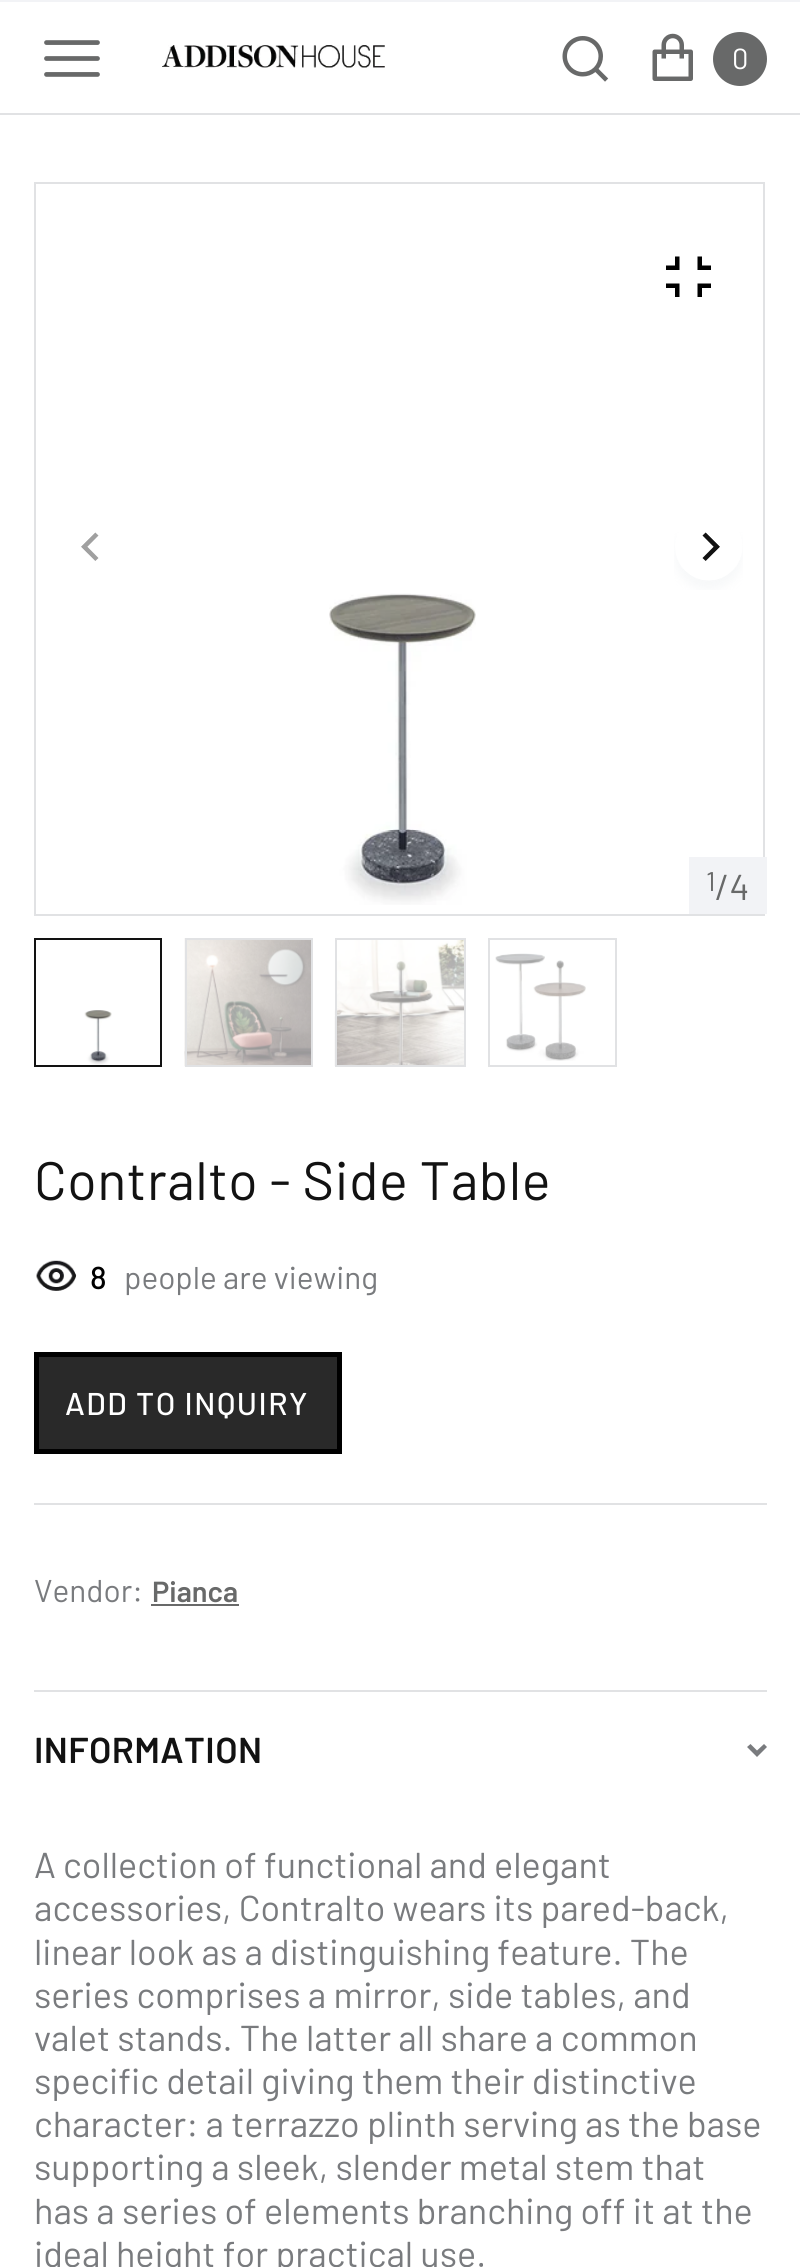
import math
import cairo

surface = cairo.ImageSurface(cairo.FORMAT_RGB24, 800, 2267)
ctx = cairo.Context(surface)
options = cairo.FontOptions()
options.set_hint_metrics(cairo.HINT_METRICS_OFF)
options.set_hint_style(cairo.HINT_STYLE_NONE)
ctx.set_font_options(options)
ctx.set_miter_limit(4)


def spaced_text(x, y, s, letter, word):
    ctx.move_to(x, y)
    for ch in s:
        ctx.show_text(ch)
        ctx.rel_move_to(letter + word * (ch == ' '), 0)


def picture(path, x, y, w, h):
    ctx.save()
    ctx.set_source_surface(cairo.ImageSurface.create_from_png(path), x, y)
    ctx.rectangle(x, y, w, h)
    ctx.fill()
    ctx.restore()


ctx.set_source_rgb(1, 1, 1)
ctx.paint()
ctx.set_source_rgb(0.949, 0.953, 0.961)
ctx.rectangle(0, 0, 800, 2)
ctx.fill()
ctx.set_source_rgb(0.882, 0.886, 0.894)
ctx.rectangle(0, 113, 800, 2)
ctx.fill()
picture("img1.png", 44, 40, 56, 37)
picture("img2.png", 162, 45, 223, 23)
picture("img3.png", 562, 36, 47, 46)
picture("img4.png", 652, 33, 41, 48)
ctx.set_source_rgb(0.408, 0.412, 0.412)
ctx.arc(740, 59, 27, 0, 2 * math.pi)
ctx.fill()
ctx.select_font_face("Barlow")
ctx.set_font_size(29)
ctx.set_source_rgb(1, 1, 1)
ctx.move_to(732, 69)
ctx.show_text("0")
picture("img5.png", 329, 593, 147, 312)
ctx.rectangle(35, 183, 729, 732)
ctx.set_source_rgb(0.882, 0.886, 0.894)
ctx.stroke()
picture("img6.png", 666, 256, 45, 41)
picture("img7.png", 81, 532, 18, 29)
picture("img8.png", 674, 532, 69, 58)
ctx.set_source_rgb(0.949, 0.953, 0.961)
ctx.rectangle(689, 857, 78, 57)
ctx.fill()
ctx.set_font_size(27)
ctx.set_source_rgb(0.408, 0.412, 0.412)
ctx.move_to(706, 891)
ctx.show_text("1")
ctx.set_font_size(36)
ctx.move_to(715, 900)
ctx.show_text("/4")
picture("img9.png", 84, 1010, 28, 55)
ctx.rectangle(35, 939, 126, 127)
ctx.set_source_rgb(0.071, 0.071, 0.071)
ctx.stroke()
picture("img10.png", 184, 938, 127, 129)
ctx.rectangle(186, 939, 126, 127)
ctx.set_source_rgb(0.882, 0.886, 0.894)
ctx.stroke()
picture("img11.png", 334, 938, 130, 128)
ctx.rectangle(336, 939, 129, 127)
ctx.stroke()
picture("img12.png", 495, 953, 91, 108)
ctx.rectangle(489, 939, 127, 127)
ctx.stroke()
ctx.set_font_size(54)
ctx.set_source_rgb(0.071, 0.071, 0.071)
spaced_text(34, 1200, "Contralto - Side Table", 0.5, 0)
picture("img13.png", 36, 1260, 41, 31)
ctx.select_font_face("Barlow Medium")
ctx.set_font_size(31.5)
ctx.set_source_rgb(0, 0, 0)
ctx.move_to(90, 1289)
ctx.show_text("8")
ctx.select_font_face("Barlow")
ctx.set_source_rgb(0.475, 0.482, 0.494)
ctx.move_to(124, 1289)
ctx.show_text("people are viewing")
ctx.set_source_rgb(0.161, 0.161, 0.161)
ctx.rectangle(36.5, 1354.5, 303, 97)
ctx.fill_preserve()
ctx.set_source_rgb(0, 0, 0)
ctx.set_line_width(5)
ctx.stroke()
ctx.select_font_face("Barlow Medium")
ctx.set_source_rgb(1, 1, 1)
spaced_text(65, 1415, "ADD TO INQUIRY", 1.5, 0)
ctx.set_source_rgb(0.882, 0.886, 0.894)
ctx.rectangle(34, 1503, 733, 2)
ctx.fill()
ctx.select_font_face("Barlow")
ctx.set_source_rgb(0.475, 0.482, 0.494)
ctx.move_to(34, 1602)
ctx.show_text("Vendor:")
ctx.select_font_face("Barlow SemiBold")
ctx.set_font_size(29)
ctx.set_source_rgb(0.408, 0.412, 0.412)
ctx.move_to(152, 1602)
ctx.show_text("Pianca")
ctx.rectangle(151, 1604, 88, 2)
ctx.fill()
ctx.set_source_rgb(0.882, 0.886, 0.894)
ctx.rectangle(34, 1690, 733, 2)
ctx.fill()
ctx.set_font_size(36)
ctx.set_source_rgb(0.071, 0.071, 0.071)
spaced_text(34, 1763, "INFORMATION", 0.4, 0)
ctx.set_source_rgb(0.475, 0.482, 0.494)
ctx.new_path()
ctx.move_to(767, 1747)
ctx.line_to(764, 1744)
ctx.line_to(757, 1750.5)
ctx.line_to(750.5, 1744)
ctx.line_to(747, 1747)
ctx.line_to(757, 1757)
ctx.close_path()
ctx.fill()
ctx.select_font_face("Barlow")
ctx.move_to(34, 1878)
ctx.show_text("A collection of functional and elegant")
ctx.move_to(34, 1921)
ctx.show_text("accessories, Contralto wears its pared-back,")
ctx.move_to(34, 1965)
ctx.show_text("linear look as a distinguishing feature. The")
ctx.move_to(34, 2008)
ctx.show_text("series comprises a mirror, side tables, and")
ctx.move_to(34, 2051)
ctx.show_text("valet stands. The latter all share a common")
ctx.move_to(34, 2094)
ctx.show_text("specific detail giving them their distinctive")
ctx.move_to(34, 2137)
ctx.show_text("character: a terrazzo plinth serving as the base")
ctx.move_to(34, 2180)
ctx.show_text("supporting a sleek, slender metal stem that")
ctx.move_to(34, 2224)
ctx.show_text("has a series of elements branching off it at the")
ctx.move_to(34, 2267)
ctx.show_text("ideal height for practical use.")
surface.write_to_png("page.png")
